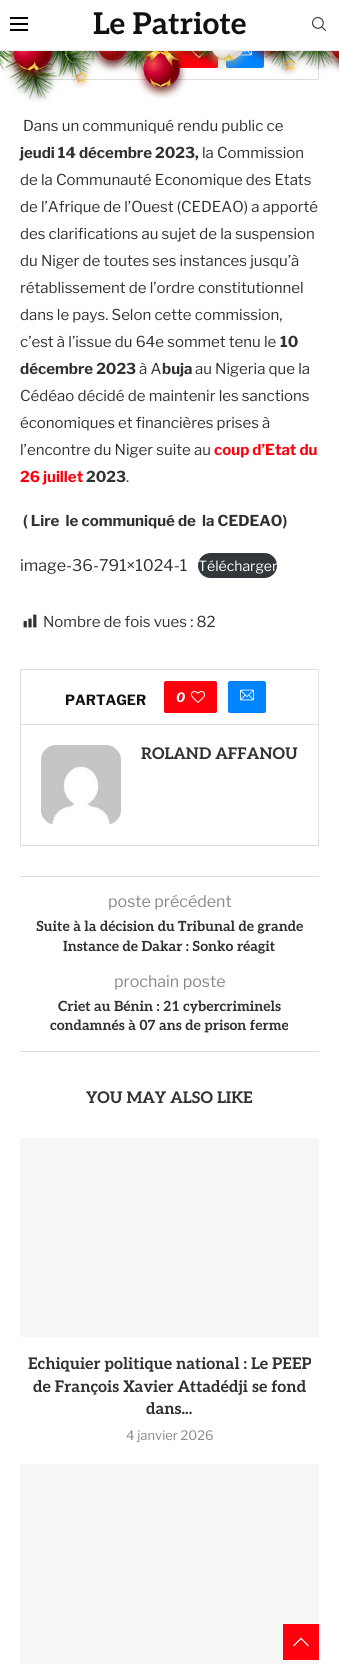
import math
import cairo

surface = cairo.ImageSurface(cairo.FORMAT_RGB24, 339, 1680)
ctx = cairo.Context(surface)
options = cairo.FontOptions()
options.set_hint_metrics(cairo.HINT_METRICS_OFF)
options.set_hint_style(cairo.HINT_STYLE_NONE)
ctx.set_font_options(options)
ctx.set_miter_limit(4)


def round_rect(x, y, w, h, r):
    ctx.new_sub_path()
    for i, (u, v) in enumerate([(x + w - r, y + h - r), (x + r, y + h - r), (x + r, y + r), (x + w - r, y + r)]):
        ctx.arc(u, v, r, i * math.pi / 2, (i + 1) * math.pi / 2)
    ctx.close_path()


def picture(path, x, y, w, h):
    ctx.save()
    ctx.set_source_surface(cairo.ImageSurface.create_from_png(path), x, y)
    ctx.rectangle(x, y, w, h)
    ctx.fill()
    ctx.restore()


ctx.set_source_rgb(1, 1, 1)
ctx.paint()
ctx.rectangle(20.5, 24.5, 298, 55)
ctx.set_source_rgb(0.871, 0.871, 0.871)
ctx.set_line_width(1)
ctx.stroke()
ctx.set_source_rgb(1, 0, 0.051)
round_rect(166, 36, 52, 32, 2)
ctx.fill()
ctx.set_source_rgb(0, 0.518, 1)
round_rect(226, 36, 38, 32, 2)
ctx.fill()
ctx.set_source_rgb(1, 1, 1)
ctx.rectangle(20, 24, 299, 26)
ctx.fill()
ctx.set_source_rgb(0.925, 0.925, 0.925)
ctx.rectangle(0, 50, 339, 1)
ctx.fill()
ctx.set_source_rgb(0, 0, 0)
ctx.rectangle(10, 17, 18, 2)
ctx.fill()
ctx.rectangle(10, 23, 18, 2)
ctx.fill()
ctx.rectangle(10, 29, 18, 2)
ctx.fill()
ctx.select_font_face("Aleo", cairo.FONT_SLANT_NORMAL, cairo.FONT_WEIGHT_BOLD)
ctx.set_font_size(30)
ctx.set_source_rgb(0.067, 0.067, 0.067)
ctx.move_to(93, 34)
ctx.show_text("Le Patriote")
picture("img1.png", 312, 17, 14, 14)
picture("img2.png", 192, 51, 14, 7)
picture("img3.png", 239, 51, 13, 5)
ctx.select_font_face("Libre Franklin")
ctx.set_font_size(15)
ctx.set_source_rgb(0.192, 0.192, 0.192)
ctx.move_to(23, 131)
ctx.show_text("Dans un communiqué rendu public ce")
ctx.select_font_face("Libre Franklin", cairo.FONT_SLANT_NORMAL, cairo.FONT_WEIGHT_BOLD)
ctx.move_to(20, 158)
ctx.show_text("jeudi 14 décembre 2023,")
ctx.select_font_face("Libre Franklin")
ctx.move_to(202, 158)
ctx.show_text("la Commission")
ctx.move_to(20, 185)
ctx.show_text("de la Communauté Economique des Etats")
ctx.move_to(20, 212)
ctx.show_text("de l’Afrique de l’Ouest (CEDEAO) a apporté")
ctx.move_to(20, 239)
ctx.show_text("des clarifications au sujet de la suspension")
ctx.move_to(20, 266)
ctx.show_text("du Niger de toutes ses instances jusqu’à")
ctx.move_to(20, 293)
ctx.show_text("rétablissement de l’ordre constitutionnel")
ctx.move_to(20, 320)
ctx.show_text("dans le pays. Selon cette commission,")
ctx.move_to(20, 347)
ctx.show_text("c’est à l’issue du 64e sommet tenu le")
ctx.select_font_face("Libre Franklin", cairo.FONT_SLANT_NORMAL, cairo.FONT_WEIGHT_BOLD)
ctx.move_to(280, 347)
ctx.show_text("10")
ctx.move_to(20, 374)
ctx.show_text("décembre 2023")
ctx.select_font_face("Libre Franklin")
ctx.move_to(139, 374)
ctx.show_text("à A")
ctx.select_font_face("Libre Franklin", cairo.FONT_SLANT_NORMAL, cairo.FONT_WEIGHT_BOLD)
ctx.move_to(162, 374)
ctx.show_text("buja")
ctx.select_font_face("Libre Franklin")
ctx.move_to(195, 374)
ctx.show_text("au Nigeria que la")
ctx.move_to(20, 401)
ctx.show_text("Cédéao décidé de maintenir les sanctions")
ctx.move_to(20, 428)
ctx.show_text("économiques et financières prises à")
ctx.move_to(20, 455)
ctx.show_text("l’encontre du Niger suite au")
ctx.select_font_face("Libre Franklin", cairo.FONT_SLANT_NORMAL, cairo.FONT_WEIGHT_BOLD)
ctx.set_source_rgb(1, 0, 0.051)
ctx.move_to(214, 455)
ctx.show_text("coup d’Etat du")
ctx.move_to(20, 482)
ctx.show_text("26 juillet")
ctx.set_source_rgb(0.192, 0.192, 0.192)
ctx.move_to(86, 482)
ctx.show_text("2023")
ctx.select_font_face("Libre Franklin")
ctx.move_to(126, 482)
ctx.show_text(".")
ctx.select_font_face("Libre Franklin", cairo.FONT_SLANT_NORMAL, cairo.FONT_WEIGHT_BOLD)
ctx.move_to(23, 526)
ctx.show_text("( Lire  le communiqué de  la CEDEAO)")
ctx.select_font_face("Libre Franklin")
ctx.set_font_size(16)
ctx.move_to(20, 571)
ctx.show_text("image-36-791×1024-1")
ctx.set_source_rgb(0.196, 0.216, 0.235)
round_rect(198, 553, 79, 25, 12.5)
ctx.fill()
ctx.set_font_size(14)
ctx.set_source_rgb(1, 1, 1)
ctx.move_to(198, 571)
ctx.show_text("Télécharger")
picture("img4.png", 23, 614, 14, 14)
ctx.set_font_size(15)
ctx.set_source_rgb(0.192, 0.192, 0.192)
ctx.move_to(43, 627)
ctx.show_text("Nombre de fois vues : 82")
ctx.rectangle(20.5, 669.5, 298, 55)
ctx.set_source_rgb(0.871, 0.871, 0.871)
ctx.stroke()
ctx.select_font_face("Libre Franklin", cairo.FONT_SLANT_NORMAL, cairo.FONT_WEIGHT_BOLD)
ctx.set_font_size(14)
ctx.set_source_rgb(0.067, 0.067, 0.067)
ctx.move_to(65, 705)
ctx.show_text("PARTAGER")
ctx.set_source_rgb(1, 0, 0.051)
round_rect(164, 681, 53, 32, 2)
ctx.fill()
ctx.select_font_face("Libre Franklin", cairo.FONT_SLANT_ITALIC, cairo.FONT_WEIGHT_BOLD)
ctx.set_font_size(13)
ctx.set_source_rgb(1, 1, 1)
ctx.move_to(176, 702)
ctx.show_text("0")
picture("img5.png", 191, 691, 14, 12)
ctx.set_source_rgb(0, 0.518, 1)
round_rect(228, 681, 38, 32, 2)
ctx.fill()
picture("img6.png", 240, 689, 14, 12)
ctx.set_source_rgb(0.871, 0.871, 0.871)
ctx.rectangle(318, 725, 1, 121)
ctx.fill()
ctx.rectangle(20, 845, 299, 1)
ctx.fill()
ctx.rectangle(20, 725, 1, 121)
ctx.fill()
picture("img7.png", 41, 745, 80, 80)
ctx.select_font_face("Aleo", cairo.FONT_SLANT_NORMAL, cairo.FONT_WEIGHT_BOLD)
ctx.set_font_size(16)
ctx.set_source_rgb(0.192, 0.192, 0.192)
ctx.move_to(141, 759)
ctx.show_text("ROLAND AFFANOU")
ctx.set_source_rgb(0.871, 0.871, 0.871)
ctx.rectangle(20, 876, 299, 1)
ctx.fill()
ctx.select_font_face("Libre Franklin")
ctx.set_source_rgb(0.533, 0.533, 0.533)
ctx.move_to(108, 907)
ctx.show_text("poste précédent")
ctx.select_font_face("Aleo", cairo.FONT_SLANT_NORMAL, cairo.FONT_WEIGHT_BOLD)
ctx.set_font_size(14)
ctx.set_source_rgb(0.192, 0.192, 0.192)
ctx.move_to(36, 931)
ctx.show_text("Suite à la décision du Tribunal de grande")
ctx.move_to(63, 951)
ctx.show_text("Instance de Dakar : Sonko réagit")
ctx.select_font_face("Libre Franklin")
ctx.set_font_size(16)
ctx.set_source_rgb(0.533, 0.533, 0.533)
ctx.move_to(114, 987)
ctx.show_text("prochain poste")
ctx.select_font_face("Aleo", cairo.FONT_SLANT_NORMAL, cairo.FONT_WEIGHT_BOLD)
ctx.set_font_size(14)
ctx.set_source_rgb(0.192, 0.192, 0.192)
ctx.move_to(58, 1011)
ctx.show_text("Criet au Bénin : 21 cybercriminels")
ctx.move_to(50, 1030)
ctx.show_text("condamnés à 07 ans de prison ferme")
ctx.set_source_rgb(0.871, 0.871, 0.871)
ctx.rectangle(20, 1051, 299, 1)
ctx.fill()
ctx.set_font_size(16)
ctx.set_source_rgb(0.192, 0.192, 0.192)
ctx.move_to(86, 1103)
ctx.show_text("YOU MAY ALSO LIKE")
ctx.set_source_rgb(0.961, 0.961, 0.961)
ctx.rectangle(20, 1138, 299, 199)
ctx.fill()
ctx.set_source_rgb(0.192, 0.192, 0.192)
ctx.move_to(28, 1369)
ctx.show_text("Echiquier politique national : Le PEEP")
ctx.move_to(33, 1392)
ctx.show_text("de François Xavier Attadédji se fond")
ctx.move_to(146, 1414)
ctx.show_text("dans...")
ctx.select_font_face("Libre Franklin")
ctx.set_font_size(13)
ctx.set_source_rgb(0.533, 0.533, 0.533)
ctx.move_to(126, 1440)
ctx.show_text("4 janvier 2026")
ctx.set_source_rgb(0.961, 0.961, 0.961)
ctx.rectangle(20, 1464, 299, 200)
ctx.fill()
picture("img8.png", 2, 51, 337, 51)
picture("img10.png", 6, 51, 52, 31)
picture("img9.png", 0, 51, 17, 20)
picture("img11.png", 92, 51, 41, 22)
picture("img12.png", 136, 51, 51, 48)
picture("img13.png", 181, 51, 19, 2)
picture("img14.png", 204, 51, 46, 21)
picture("img15.png", 247, 51, 43, 13)
picture("img16.png", 325, 51, 14, 21)
ctx.set_source_rgb(1, 0, 0.051)
ctx.rectangle(283, 1624, 36, 36)
ctx.fill()
picture("img17.png", 293, 1637, 16, 10)
surface.write_to_png("page.png")
